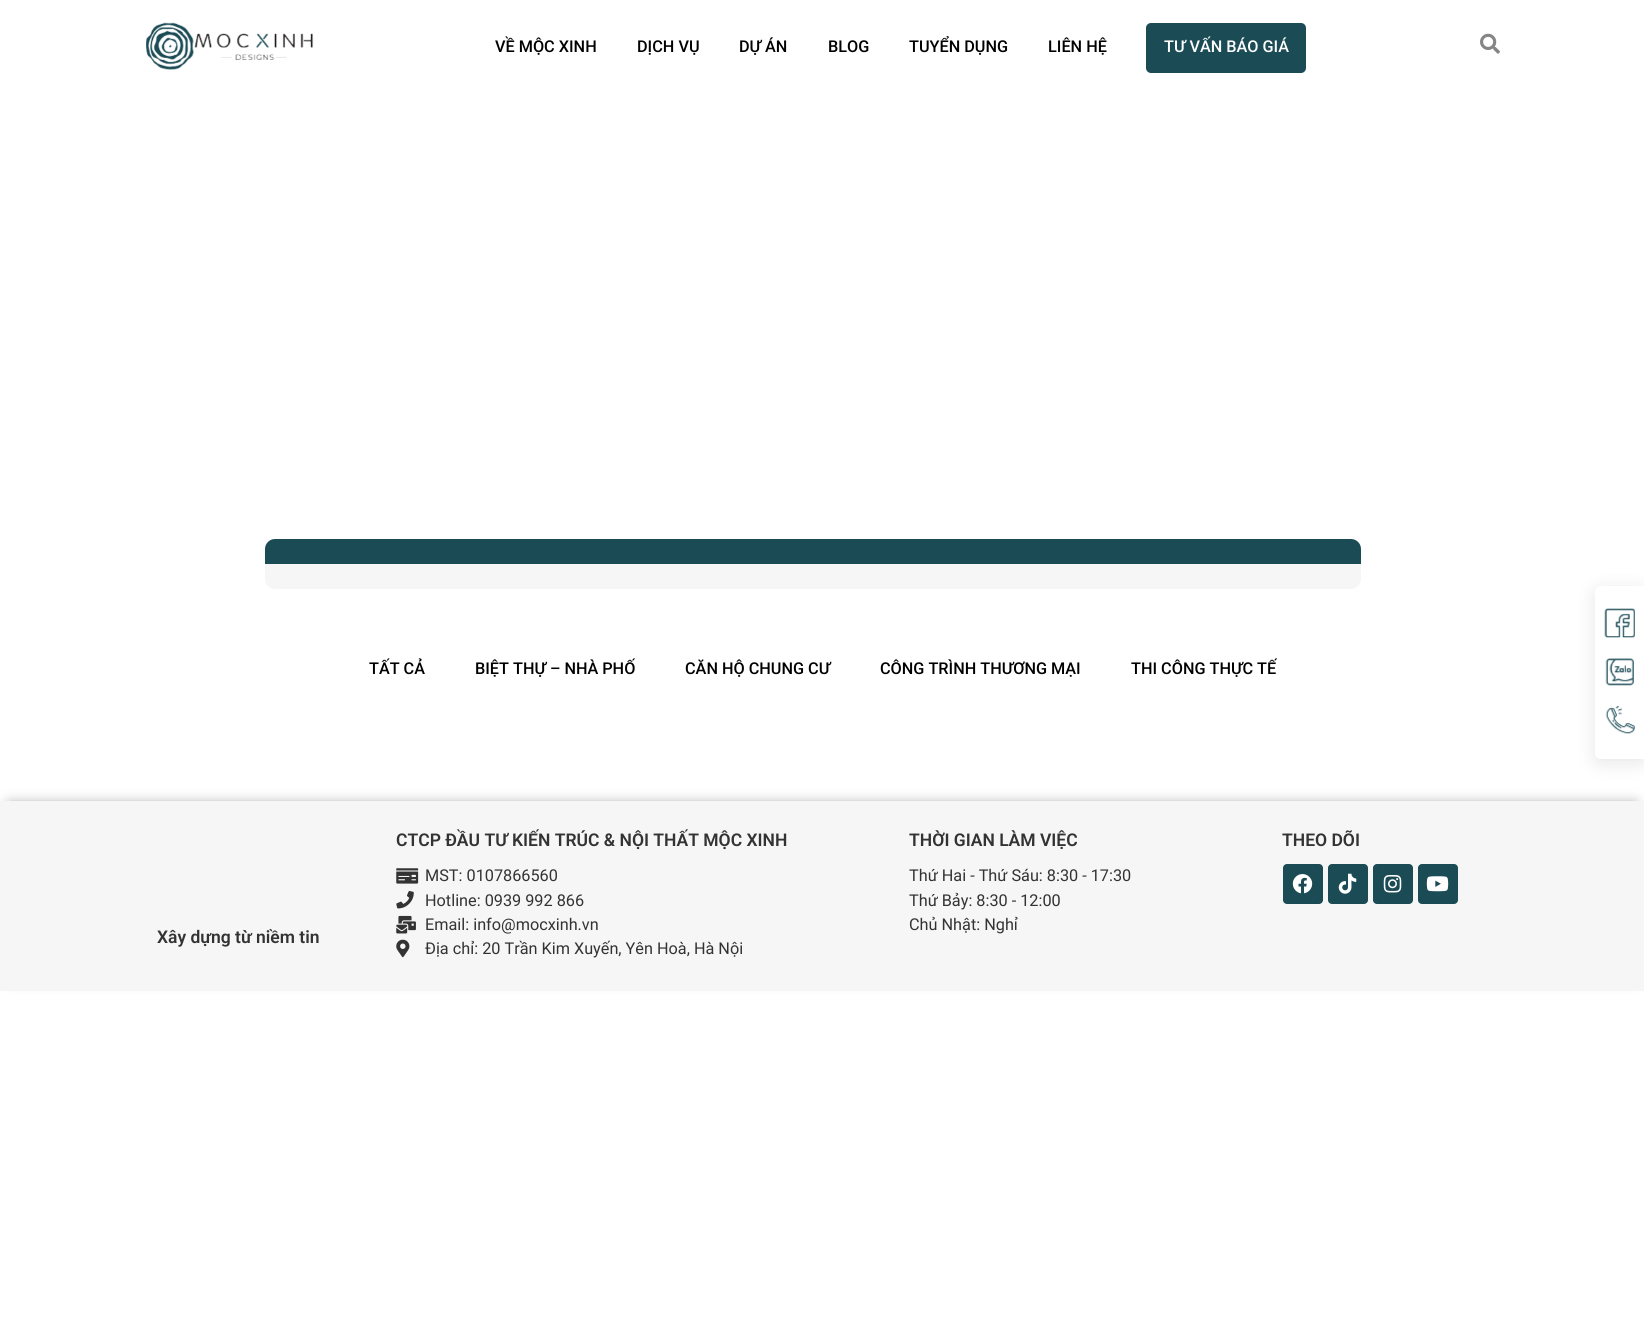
import math
import cairo

surface = cairo.ImageSurface(cairo.FORMAT_RGB24, 1644, 1343)
ctx = cairo.Context(surface)
options = cairo.FontOptions()
options.set_hint_metrics(cairo.HINT_METRICS_OFF)
options.set_hint_style(cairo.HINT_STYLE_NONE)
ctx.set_font_options(options)
ctx.set_miter_limit(4)


def round_rect(x, y, w, h, r):
    ctx.new_sub_path()
    for i, (u, v) in enumerate([(x + w - r, y + h - r), (x + r, y + h - r), (x + r, y + r), (x + w - r, y + r)]):
        ctx.arc(u, v, r, i * math.pi / 2, (i + 1) * math.pi / 2)
    ctx.close_path()


def shadow(x, y, w, h, r, blur, alpha):
    ctx.push_group_with_content(cairo.CONTENT_ALPHA)
    ctx.set_operator(cairo.OPERATOR_SOURCE)
    for i in range(15, -16, -2):
        e = blur * i / 6
        if min(w, h) + 2 * e > 0:
            ctx.set_source_rgba(0, 0, 0, alpha * math.erfc((i - 1) / 8.5) / 2)
            round_rect(x - e, y - e, w + 2 * e, h + 2 * e, max(0, min(r + e + blur * .6, min(w, h) / 2 + e)))
            ctx.fill()
    ctx.mask(ctx.pop_group())


def picture(path, x, y, w, h):
    ctx.save()
    ctx.set_source_surface(cairo.ImageSurface.create_from_png(path), x, y)
    ctx.rectangle(x, y, w, h)
    ctx.fill()
    ctx.restore()


ctx.set_source_rgb(1, 1, 1)
ctx.paint()
picture("img1.png", 146, 22, 168, 48)
ctx.select_font_face("Roboto Medium")
ctx.set_font_size(16.25)
ctx.set_source_rgb(0, 0, 0)
ctx.move_to(495, 52)
ctx.show_text("VỀ MỘC XINH")
ctx.move_to(637, 52)
ctx.show_text("DỊCH VỤ")
ctx.move_to(739, 52)
ctx.show_text("DỰ ÁN")
ctx.move_to(828, 52)
ctx.show_text("BLOG")
ctx.move_to(909, 52)
ctx.show_text("TUYỂN DỤNG")
ctx.move_to(1048, 52)
ctx.show_text("LIÊN HỆ")
ctx.set_source_rgb(0.106, 0.294, 0.333)
round_rect(1146, 23, 160, 50, 5)
ctx.fill()
ctx.set_source_rgb(1, 1, 1)
ctx.move_to(1164, 52)
ctx.show_text("TƯ VẤN BÁO GIÁ")
picture("img2.png", 1480, 33, 20, 21)
ctx.set_source_rgb(0.106, 0.294, 0.333)
ctx.new_path()
ctx.move_to(275, 539)
ctx.line_to(1351, 539)
ctx.curve_to(1356.5, 539, 1361, 543.5, 1361, 549)
ctx.line_to(1361, 564)
ctx.line_to(265, 564)
ctx.line_to(265, 549)
ctx.curve_to(265, 543.5, 269.5, 539, 275, 539)
ctx.close_path()
ctx.fill()
ctx.set_source_rgb(0.961, 0.961, 0.961)
ctx.new_path()
ctx.move_to(265, 564)
ctx.line_to(1361, 564)
ctx.line_to(1361, 579)
ctx.curve_to(1361, 584.5, 1356.5, 589, 1351, 589)
ctx.line_to(275, 589)
ctx.curve_to(269.5, 589, 265, 584.5, 265, 579)
ctx.close_path()
ctx.fill()
ctx.set_source_rgb(0, 0, 0)
ctx.move_to(369, 674)
ctx.show_text("TẤT CẢ")
ctx.move_to(475, 674)
ctx.show_text("BIỆT THỰ – NHÀ PHỐ")
ctx.move_to(685, 674)
ctx.show_text("CĂN HỘ CHUNG CƯ")
ctx.move_to(880, 674)
ctx.show_text("CÔNG TRÌNH THƯƠNG MẠI")
ctx.move_to(1131, 674)
ctx.show_text("THI CÔNG THỰC TẾ")
ctx.set_source_rgb(0, 0, 0)
shadow(1595, 590, 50, 173, 6, 9.5, 0.1)
ctx.set_source_rgb(1, 1, 1)
ctx.new_path()
ctx.move_to(1601, 586)
ctx.line_to(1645, 586)
ctx.line_to(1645, 759)
ctx.line_to(1601, 759)
ctx.curve_to(1597.5, 759, 1595, 756.5, 1595, 753)
ctx.line_to(1595, 592)
ctx.curve_to(1595, 588.5, 1597.5, 586, 1601, 586)
ctx.close_path()
ctx.fill()
picture("img3.png", 1604, 608, 31, 30)
picture("img4.png", 1605, 658, 29, 28)
picture("img5.png", 1605, 706, 30, 28)
ctx.set_source_rgb(0, 0, 0)
shadow(10, 806, 1625, 170, 0, 7.5, 0.5)
ctx.set_source_rgb(0.961, 0.961, 0.961)
ctx.rectangle(0, 801, 1644, 190)
ctx.fill()
ctx.select_font_face("Roboto SemiBold")
ctx.set_font_size(17.5)
ctx.set_source_rgb(0.2, 0.2, 0.2)
ctx.move_to(396, 846)
ctx.show_text("CTCP ĐẦU TƯ KIẾN TRÚC & NỘI THẤT MỘC XINH")
picture("img6.png", 396, 868, 23, 16)
ctx.select_font_face("Roboto")
ctx.set_font_size(16.25)
ctx.move_to(425, 881)
ctx.show_text("MST: 0107866560")
picture("img7.png", 396, 891, 18, 18)
ctx.move_to(425, 906)
ctx.show_text("Hotline: 0939 992 866")
picture("img8.png", 396, 915, 20, 19)
ctx.move_to(425, 930)
ctx.show_text("Email: info@mocxinh.vn")
picture("img9.png", 396, 939, 14, 19)
ctx.move_to(425, 954)
ctx.show_text("Địa chỉ: 20 Trần Kim Xuyến, Yên Hoà, Hà Nội")
ctx.select_font_face("Roboto SemiBold")
ctx.set_font_size(17.5)
ctx.move_to(909, 846)
ctx.show_text("THỜI GIAN LÀM VIỆC")
ctx.select_font_face("Roboto")
ctx.set_font_size(16.25)
ctx.move_to(909, 881)
ctx.show_text("Thứ Hai - Thứ Sáu: 8:30 - 17:30")
ctx.move_to(909, 906)
ctx.show_text("Thứ Bảy: 8:30 - 12:00")
ctx.move_to(909, 930)
ctx.show_text("Chủ Nhật: Nghỉ")
ctx.select_font_face("Roboto SemiBold")
ctx.set_font_size(17.5)
ctx.move_to(1282, 846)
ctx.show_text("THEO DÕI")
ctx.set_source_rgb(0.106, 0.294, 0.333)
round_rect(1283, 864, 40, 40, 4)
ctx.fill()
picture("img10.png", 1292, 874, 21, 20)
round_rect(1328, 864, 40, 40, 4)
ctx.fill()
picture("img11.png", 1338, 873, 19, 21)
round_rect(1373, 864, 40, 40, 4)
ctx.fill()
picture("img12.png", 1383, 874, 19, 19)
round_rect(1418, 864, 40, 40, 4)
ctx.fill()
picture("img13.png", 1426, 876, 23, 16)
ctx.set_source_rgb(0.2, 0.2, 0.2)
ctx.move_to(157, 943)
ctx.show_text("Xây dựng từ niềm tin")
surface.write_to_png("page.png")
